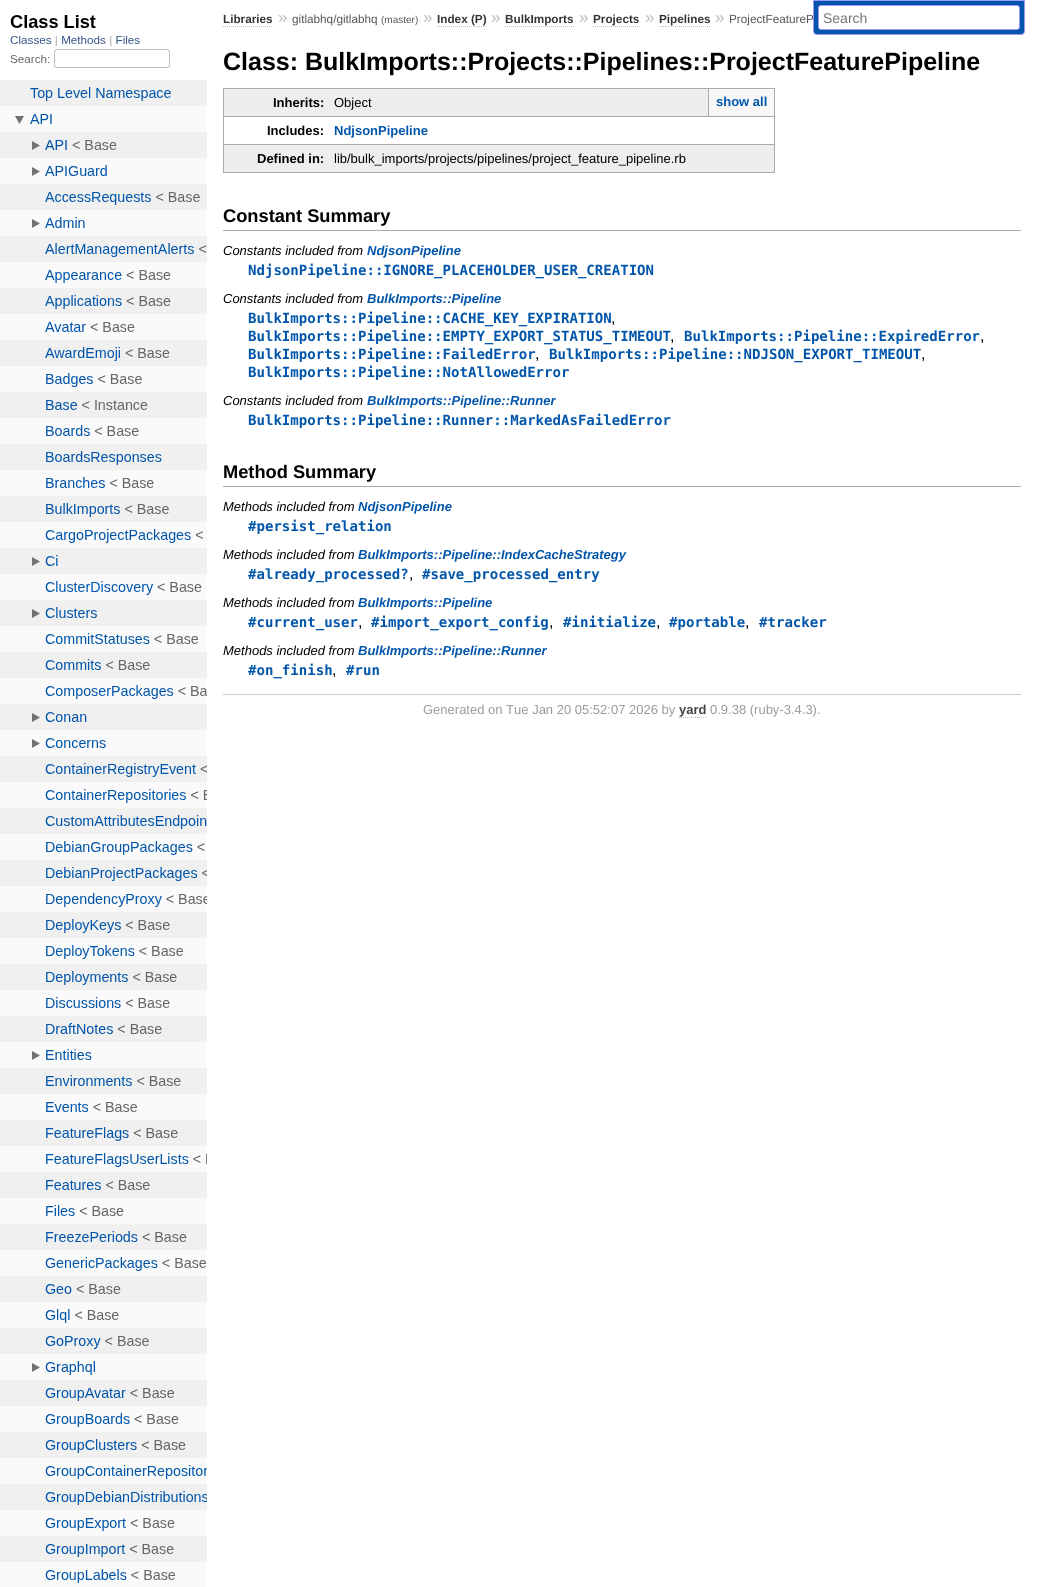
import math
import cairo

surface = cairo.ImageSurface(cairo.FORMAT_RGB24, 1037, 1587)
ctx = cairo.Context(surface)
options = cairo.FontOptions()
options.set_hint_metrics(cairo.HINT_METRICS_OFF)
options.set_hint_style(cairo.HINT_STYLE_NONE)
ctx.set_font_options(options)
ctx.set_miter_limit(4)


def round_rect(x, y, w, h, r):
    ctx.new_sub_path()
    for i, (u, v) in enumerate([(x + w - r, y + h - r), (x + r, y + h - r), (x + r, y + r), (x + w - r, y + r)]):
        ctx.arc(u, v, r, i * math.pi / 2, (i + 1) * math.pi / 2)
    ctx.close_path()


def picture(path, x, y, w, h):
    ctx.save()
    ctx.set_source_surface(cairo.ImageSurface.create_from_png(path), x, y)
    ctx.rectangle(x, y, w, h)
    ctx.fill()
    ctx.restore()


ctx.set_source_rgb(1, 1, 1)
ctx.paint()
picture("img1.png", 0, 15, 207, 1572)
ctx.select_font_face("Liberation Sans", cairo.FONT_SLANT_NORMAL, cairo.FONT_WEIGHT_BOLD)
ctx.set_font_size(11.75)
ctx.set_source_rgb(0.2, 0.2, 0.2)
ctx.move_to(223, 23)
ctx.show_text("Libraries")
ctx.new_path()
ctx.move_to(223, 26.5)
ctx.line_to(273, 26.5)
ctx.set_source_rgb(0.733, 0.733, 0.867)
ctx.set_line_width(1)
ctx.set_dash([1, 1])
ctx.stroke()
ctx.select_font_face("Liberation Sans")
ctx.set_font_size(17)
ctx.set_source_rgb(0.733, 0.733, 0.733)
ctx.move_to(278, 23)
ctx.show_text("»")
ctx.set_font_size(11.75)
ctx.set_source_rgb(0.333, 0.333, 0.333)
ctx.move_to(292, 23)
ctx.show_text("gitlabhq/gitlabhq")
ctx.set_font_size(10)
ctx.move_to(381, 23)
ctx.show_text("(master)")
ctx.set_font_size(17)
ctx.set_source_rgb(0.733, 0.733, 0.733)
ctx.move_to(423, 23)
ctx.show_text("»")
ctx.select_font_face("Liberation Sans", cairo.FONT_SLANT_NORMAL, cairo.FONT_WEIGHT_BOLD)
ctx.set_font_size(11.75)
ctx.set_source_rgb(0.2, 0.2, 0.2)
ctx.move_to(437, 23)
ctx.show_text("Index (P)")
ctx.new_path()
ctx.move_to(437, 26.5)
ctx.line_to(487, 26.5)
ctx.set_source_rgb(0.733, 0.733, 0.867)
ctx.stroke()
ctx.select_font_face("Liberation Sans")
ctx.set_font_size(17)
ctx.set_source_rgb(0.733, 0.733, 0.733)
ctx.move_to(491, 23)
ctx.show_text("»")
ctx.select_font_face("Liberation Sans", cairo.FONT_SLANT_NORMAL, cairo.FONT_WEIGHT_BOLD)
ctx.set_font_size(11.75)
ctx.set_source_rgb(0.2, 0.2, 0.2)
ctx.move_to(505, 23)
ctx.show_text("BulkImports")
ctx.new_path()
ctx.move_to(505, 26.5)
ctx.line_to(574, 26.5)
ctx.set_source_rgb(0.733, 0.733, 0.867)
ctx.stroke()
ctx.select_font_face("Liberation Sans")
ctx.set_font_size(17)
ctx.set_source_rgb(0.733, 0.733, 0.733)
ctx.move_to(579, 23)
ctx.show_text("»")
ctx.select_font_face("Liberation Sans", cairo.FONT_SLANT_NORMAL, cairo.FONT_WEIGHT_BOLD)
ctx.set_font_size(11.75)
ctx.set_source_rgb(0.2, 0.2, 0.2)
ctx.move_to(593, 23)
ctx.show_text("Projects")
ctx.new_path()
ctx.move_to(593, 26.5)
ctx.line_to(640, 26.5)
ctx.set_source_rgb(0.733, 0.733, 0.867)
ctx.stroke()
ctx.select_font_face("Liberation Sans")
ctx.set_font_size(17)
ctx.set_source_rgb(0.733, 0.733, 0.733)
ctx.move_to(645, 23)
ctx.show_text("»")
ctx.select_font_face("Liberation Sans", cairo.FONT_SLANT_NORMAL, cairo.FONT_WEIGHT_BOLD)
ctx.set_font_size(11.75)
ctx.set_source_rgb(0.2, 0.2, 0.2)
ctx.move_to(659, 23)
ctx.show_text("Pipelines")
ctx.new_path()
ctx.move_to(659, 26.5)
ctx.line_to(711, 26.5)
ctx.set_source_rgb(0.733, 0.733, 0.867)
ctx.stroke()
ctx.select_font_face("Liberation Sans")
ctx.set_font_size(17)
ctx.set_source_rgb(0.733, 0.733, 0.733)
ctx.move_to(715, 23)
ctx.show_text("»")
ctx.set_font_size(11.75)
ctx.set_source_rgb(0.333, 0.333, 0.333)
ctx.move_to(729, 23)
ctx.show_text("ProjectFeatureP")
ctx.set_source_rgb(0, 0.333, 0.667)
ctx.new_path()
ctx.move_to(813.5, 0.5)
ctx.line_to(1024.5, 0.5)
ctx.line_to(1024.5, 31)
ctx.curve_to(1024.5, 33, 1023, 34.5, 1021, 34.5)
ctx.line_to(817, 34.5)
ctx.curve_to(815, 34.5, 813.5, 33, 813.5, 31)
ctx.close_path()
ctx.fill_preserve()
ctx.set_source_rgb(0.6, 0.6, 1)
ctx.set_dash([])
ctx.stroke()
ctx.set_source_rgb(1, 1, 1)
round_rect(818.5, 5.5, 201, 24, 2.5)
ctx.fill_preserve()
ctx.set_source_rgb(0.6, 0.6, 1)
ctx.stroke()
ctx.set_font_size(14)
ctx.set_source_rgb(0.459, 0.459, 0.459)
ctx.move_to(823, 23)
ctx.show_text("Search")
ctx.select_font_face("Liberation Sans", cairo.FONT_SLANT_NORMAL, cairo.FONT_WEIGHT_BOLD)
ctx.set_font_size(25)
ctx.set_source_rgb(0, 0, 0)
ctx.move_to(223, 70)
ctx.show_text("Class: BulkImports::Projects::Pipelines::ProjectFeaturePipeline")
ctx.set_source_rgb(0.933, 0.933, 0.933)
ctx.rectangle(224, 89, 484, 27)
ctx.fill()
ctx.set_source_rgb(0.667, 0.667, 0.667)
ctx.rectangle(223, 88, 552, 1)
ctx.fill()
ctx.rectangle(223, 88, 1, 28)
ctx.fill()
ctx.set_font_size(13)
ctx.set_source_rgb(0, 0, 0)
ctx.move_to(273, 107)
ctx.show_text("Inherits:")
ctx.set_source_rgb(0.667, 0.667, 0.667)
ctx.rectangle(223, 116, 552, 1)
ctx.fill()
ctx.rectangle(223, 144, 552, 1)
ctx.fill()
ctx.rectangle(774, 88, 1, 85)
ctx.fill()
ctx.select_font_face("Liberation Sans")
ctx.set_source_rgb(0, 0, 0)
ctx.move_to(334, 107)
ctx.show_text("Object")
ctx.set_source_rgb(0.965, 0.965, 0.965)
ctx.rectangle(709, 89, 65, 27)
ctx.fill()
ctx.set_source_rgb(0.667, 0.667, 0.667)
ctx.rectangle(708, 89, 1, 27)
ctx.fill()
ctx.select_font_face("Liberation Sans", cairo.FONT_SLANT_NORMAL, cairo.FONT_WEIGHT_BOLD)
ctx.set_source_rgb(0, 0.333, 0.667)
ctx.move_to(716, 106)
ctx.show_text("show all")
ctx.set_source_rgb(0.667, 0.667, 0.667)
ctx.rectangle(223, 116, 1, 28)
ctx.fill()
ctx.set_source_rgb(0, 0, 0)
ctx.move_to(267, 135)
ctx.show_text("Includes:")
ctx.set_source_rgb(0, 0.333, 0.667)
ctx.move_to(334, 135)
ctx.show_text("NdjsonPipeline")
ctx.set_source_rgb(0.933, 0.933, 0.933)
ctx.rectangle(224, 145, 550, 27)
ctx.fill()
ctx.set_source_rgb(0.667, 0.667, 0.667)
ctx.rectangle(223, 172, 111, 1)
ctx.fill()
ctx.rectangle(223, 144, 1, 29)
ctx.fill()
ctx.set_source_rgb(0, 0, 0)
ctx.move_to(257, 163)
ctx.show_text("Defined in:")
ctx.set_source_rgb(0.667, 0.667, 0.667)
ctx.rectangle(334, 172, 441, 1)
ctx.fill()
ctx.select_font_face("Liberation Sans")
ctx.set_source_rgb(0, 0, 0)
ctx.move_to(334, 163)
ctx.show_text("lib/bulk_imports/projects/pipelines/project_feature_pipeline.rb")
ctx.set_source_rgb(0.667, 0.667, 0.667)
ctx.rectangle(223, 230, 798, 1)
ctx.fill()
ctx.select_font_face("Liberation Sans", cairo.FONT_SLANT_NORMAL, cairo.FONT_WEIGHT_BOLD)
ctx.set_font_size(18.25)
ctx.set_source_rgb(0, 0, 0)
ctx.move_to(223, 222)
ctx.show_text("Constant Summary")
ctx.select_font_face("Liberation Sans", cairo.FONT_SLANT_ITALIC)
ctx.set_font_size(13)
ctx.move_to(223, 255)
ctx.show_text("Constants included from")
ctx.select_font_face("Liberation Sans", cairo.FONT_SLANT_ITALIC, cairo.FONT_WEIGHT_BOLD)
ctx.set_source_rgb(0, 0.333, 0.667)
ctx.move_to(367, 255)
ctx.show_text("NdjsonPipeline")
ctx.select_font_face("DejaVu Sans Mono", cairo.FONT_SLANT_NORMAL, cairo.FONT_WEIGHT_BOLD)
ctx.set_font_size(14.05)
ctx.move_to(248, 275)
ctx.show_text("NdjsonPipeline::IGNORE_PLACEHOLDER_USER_CREATION")
ctx.select_font_face("Liberation Sans", cairo.FONT_SLANT_ITALIC)
ctx.set_font_size(13)
ctx.set_source_rgb(0, 0, 0)
ctx.move_to(223, 303)
ctx.show_text("Constants included from")
ctx.select_font_face("Liberation Sans", cairo.FONT_SLANT_ITALIC, cairo.FONT_WEIGHT_BOLD)
ctx.set_source_rgb(0, 0.333, 0.667)
ctx.move_to(367, 303)
ctx.show_text("BulkImports::Pipeline")
ctx.select_font_face("DejaVu Sans Mono", cairo.FONT_SLANT_NORMAL, cairo.FONT_WEIGHT_BOLD)
ctx.set_font_size(14.05)
ctx.move_to(248, 323)
ctx.show_text("BulkImports::Pipeline::CACHE_KEY_EXPIRATION")
ctx.select_font_face("Liberation Sans")
ctx.set_font_size(16)
ctx.set_source_rgb(0, 0, 0)
ctx.move_to(611, 323)
ctx.show_text(",")
ctx.select_font_face("DejaVu Sans Mono", cairo.FONT_SLANT_NORMAL, cairo.FONT_WEIGHT_BOLD)
ctx.set_font_size(14.05)
ctx.set_source_rgb(0, 0.333, 0.667)
ctx.move_to(248, 341)
ctx.show_text("BulkImports::Pipeline::EMPTY_EXPORT_STATUS_TIMEOUT")
ctx.select_font_face("Liberation Sans")
ctx.set_font_size(16)
ctx.set_source_rgb(0, 0, 0)
ctx.move_to(670, 341)
ctx.show_text(",")
ctx.select_font_face("DejaVu Sans Mono", cairo.FONT_SLANT_NORMAL, cairo.FONT_WEIGHT_BOLD)
ctx.set_font_size(14.05)
ctx.set_source_rgb(0, 0.333, 0.667)
ctx.move_to(684, 341)
ctx.show_text("BulkImports::Pipeline::ExpiredError")
ctx.select_font_face("Liberation Sans")
ctx.set_font_size(16)
ctx.set_source_rgb(0, 0, 0)
ctx.move_to(980, 341)
ctx.show_text(",")
ctx.select_font_face("DejaVu Sans Mono", cairo.FONT_SLANT_NORMAL, cairo.FONT_WEIGHT_BOLD)
ctx.set_font_size(14.05)
ctx.set_source_rgb(0, 0.333, 0.667)
ctx.move_to(248, 359)
ctx.show_text("BulkImports::Pipeline::FailedError")
ctx.select_font_face("Liberation Sans")
ctx.set_font_size(16)
ctx.set_source_rgb(0, 0, 0)
ctx.move_to(535, 359)
ctx.show_text(",")
ctx.select_font_face("DejaVu Sans Mono", cairo.FONT_SLANT_NORMAL, cairo.FONT_WEIGHT_BOLD)
ctx.set_font_size(14.05)
ctx.set_source_rgb(0, 0.333, 0.667)
ctx.move_to(549, 359)
ctx.show_text("BulkImports::Pipeline::NDJSON_EXPORT_TIMEOUT")
ctx.select_font_face("Liberation Sans")
ctx.set_font_size(16)
ctx.set_source_rgb(0, 0, 0)
ctx.move_to(921, 359)
ctx.show_text(",")
ctx.select_font_face("DejaVu Sans Mono", cairo.FONT_SLANT_NORMAL, cairo.FONT_WEIGHT_BOLD)
ctx.set_font_size(14.05)
ctx.set_source_rgb(0, 0.333, 0.667)
ctx.move_to(248, 377)
ctx.show_text("BulkImports::Pipeline::NotAllowedError")
ctx.select_font_face("Liberation Sans", cairo.FONT_SLANT_ITALIC)
ctx.set_font_size(13)
ctx.set_source_rgb(0, 0, 0)
ctx.move_to(223, 405)
ctx.show_text("Constants included from")
ctx.select_font_face("Liberation Sans", cairo.FONT_SLANT_ITALIC, cairo.FONT_WEIGHT_BOLD)
ctx.set_source_rgb(0, 0.333, 0.667)
ctx.move_to(367, 405)
ctx.show_text("BulkImports::Pipeline::Runner")
ctx.select_font_face("DejaVu Sans Mono", cairo.FONT_SLANT_NORMAL, cairo.FONT_WEIGHT_BOLD)
ctx.set_font_size(14.05)
ctx.move_to(248, 425)
ctx.show_text("BulkImports::Pipeline::Runner::MarkedAsFailedError")
ctx.set_source_rgb(0.667, 0.667, 0.667)
ctx.rectangle(223, 486, 798, 1)
ctx.fill()
ctx.select_font_face("Liberation Sans", cairo.FONT_SLANT_NORMAL, cairo.FONT_WEIGHT_BOLD)
ctx.set_font_size(18.25)
ctx.set_source_rgb(0, 0, 0)
ctx.move_to(223, 478)
ctx.show_text("Method Summary")
ctx.select_font_face("Liberation Sans", cairo.FONT_SLANT_ITALIC)
ctx.set_font_size(13)
ctx.move_to(223, 511)
ctx.show_text("Methods included from")
ctx.select_font_face("Liberation Sans", cairo.FONT_SLANT_ITALIC, cairo.FONT_WEIGHT_BOLD)
ctx.set_source_rgb(0, 0.333, 0.667)
ctx.move_to(358, 511)
ctx.show_text("NdjsonPipeline")
ctx.select_font_face("DejaVu Sans Mono", cairo.FONT_SLANT_NORMAL, cairo.FONT_WEIGHT_BOLD)
ctx.set_font_size(14.05)
ctx.move_to(248, 531)
ctx.show_text("#persist_relation")
ctx.select_font_face("Liberation Sans", cairo.FONT_SLANT_ITALIC)
ctx.set_font_size(13)
ctx.set_source_rgb(0, 0, 0)
ctx.move_to(223, 559)
ctx.show_text("Methods included from")
ctx.select_font_face("Liberation Sans", cairo.FONT_SLANT_ITALIC, cairo.FONT_WEIGHT_BOLD)
ctx.set_source_rgb(0, 0.333, 0.667)
ctx.move_to(358, 559)
ctx.show_text("BulkImports::Pipeline::IndexCacheStrategy")
ctx.select_font_face("DejaVu Sans Mono", cairo.FONT_SLANT_NORMAL, cairo.FONT_WEIGHT_BOLD)
ctx.set_font_size(14.05)
ctx.move_to(248, 579)
ctx.show_text("#already_processed?")
ctx.select_font_face("Liberation Sans")
ctx.set_font_size(16)
ctx.set_source_rgb(0, 0, 0)
ctx.move_to(409, 579)
ctx.show_text(",")
ctx.select_font_face("DejaVu Sans Mono", cairo.FONT_SLANT_NORMAL, cairo.FONT_WEIGHT_BOLD)
ctx.set_font_size(14.05)
ctx.set_source_rgb(0, 0.333, 0.667)
ctx.move_to(422, 579)
ctx.show_text("#save_processed_entry")
ctx.select_font_face("Liberation Sans", cairo.FONT_SLANT_ITALIC)
ctx.set_font_size(13)
ctx.set_source_rgb(0, 0, 0)
ctx.move_to(223, 607)
ctx.show_text("Methods included from")
ctx.select_font_face("Liberation Sans", cairo.FONT_SLANT_ITALIC, cairo.FONT_WEIGHT_BOLD)
ctx.set_source_rgb(0, 0.333, 0.667)
ctx.move_to(358, 607)
ctx.show_text("BulkImports::Pipeline")
ctx.select_font_face("DejaVu Sans Mono", cairo.FONT_SLANT_NORMAL, cairo.FONT_WEIGHT_BOLD)
ctx.set_font_size(14.05)
ctx.move_to(248, 627)
ctx.show_text("#current_user")
ctx.select_font_face("Liberation Sans")
ctx.set_font_size(16)
ctx.set_source_rgb(0, 0, 0)
ctx.move_to(358, 627)
ctx.show_text(",")
ctx.select_font_face("DejaVu Sans Mono", cairo.FONT_SLANT_NORMAL, cairo.FONT_WEIGHT_BOLD)
ctx.set_font_size(14.05)
ctx.set_source_rgb(0, 0.333, 0.667)
ctx.move_to(371, 627)
ctx.show_text("#import_export_config")
ctx.select_font_face("Liberation Sans")
ctx.set_font_size(16)
ctx.set_source_rgb(0, 0, 0)
ctx.move_to(549, 627)
ctx.show_text(",")
ctx.select_font_face("DejaVu Sans Mono", cairo.FONT_SLANT_NORMAL, cairo.FONT_WEIGHT_BOLD)
ctx.set_font_size(14.05)
ctx.set_source_rgb(0, 0.333, 0.667)
ctx.move_to(563, 627)
ctx.show_text("#initialize")
ctx.select_font_face("Liberation Sans")
ctx.set_font_size(16)
ctx.set_source_rgb(0, 0, 0)
ctx.move_to(656, 627)
ctx.show_text(",")
ctx.select_font_face("DejaVu Sans Mono", cairo.FONT_SLANT_NORMAL, cairo.FONT_WEIGHT_BOLD)
ctx.set_font_size(14.05)
ctx.set_source_rgb(0, 0.333, 0.667)
ctx.move_to(669, 627)
ctx.show_text("#portable")
ctx.select_font_face("Liberation Sans")
ctx.set_font_size(16)
ctx.set_source_rgb(0, 0, 0)
ctx.move_to(745, 627)
ctx.show_text(",")
ctx.select_font_face("DejaVu Sans Mono", cairo.FONT_SLANT_NORMAL, cairo.FONT_WEIGHT_BOLD)
ctx.set_font_size(14.05)
ctx.set_source_rgb(0, 0.333, 0.667)
ctx.move_to(759, 627)
ctx.show_text("#tracker")
ctx.select_font_face("Liberation Sans", cairo.FONT_SLANT_ITALIC)
ctx.set_font_size(13)
ctx.set_source_rgb(0, 0, 0)
ctx.move_to(223, 655)
ctx.show_text("Methods included from")
ctx.select_font_face("Liberation Sans", cairo.FONT_SLANT_ITALIC, cairo.FONT_WEIGHT_BOLD)
ctx.set_source_rgb(0, 0.333, 0.667)
ctx.move_to(358, 655)
ctx.show_text("BulkImports::Pipeline::Runner")
ctx.select_font_face("DejaVu Sans Mono", cairo.FONT_SLANT_NORMAL, cairo.FONT_WEIGHT_BOLD)
ctx.set_font_size(14.05)
ctx.move_to(248, 675)
ctx.show_text("#on_finish")
ctx.select_font_face("Liberation Sans")
ctx.set_font_size(16)
ctx.set_source_rgb(0, 0, 0)
ctx.move_to(332, 675)
ctx.show_text(",")
ctx.select_font_face("DejaVu Sans Mono", cairo.FONT_SLANT_NORMAL, cairo.FONT_WEIGHT_BOLD)
ctx.set_font_size(14.05)
ctx.set_source_rgb(0, 0.333, 0.667)
ctx.move_to(346, 675)
ctx.show_text("#run")
ctx.set_source_rgb(0.8, 0.8, 0.8)
ctx.rectangle(223, 694, 798, 1)
ctx.fill()
ctx.select_font_face("Liberation Sans")
ctx.set_font_size(13)
ctx.set_source_rgb(0.6, 0.6, 0.6)
ctx.move_to(423, 714)
ctx.show_text("Generated on Tue Jan 20 05:52:07 2026 by")
ctx.select_font_face("Liberation Sans", cairo.FONT_SLANT_NORMAL, cairo.FONT_WEIGHT_BOLD)
ctx.set_source_rgb(0.267, 0.267, 0.267)
ctx.move_to(679, 714)
ctx.show_text("yard")
ctx.new_path()
ctx.move_to(679, 717.5)
ctx.line_to(707, 717.5)
ctx.set_source_rgb(0.733, 0.733, 0.867)
ctx.set_dash([1, 1])
ctx.stroke()
ctx.select_font_face("Liberation Sans")
ctx.set_source_rgb(0.6, 0.6, 0.6)
ctx.move_to(710, 714)
ctx.show_text("0.9.38 (ruby-3.4.3).")
surface.write_to_png("page.png")
